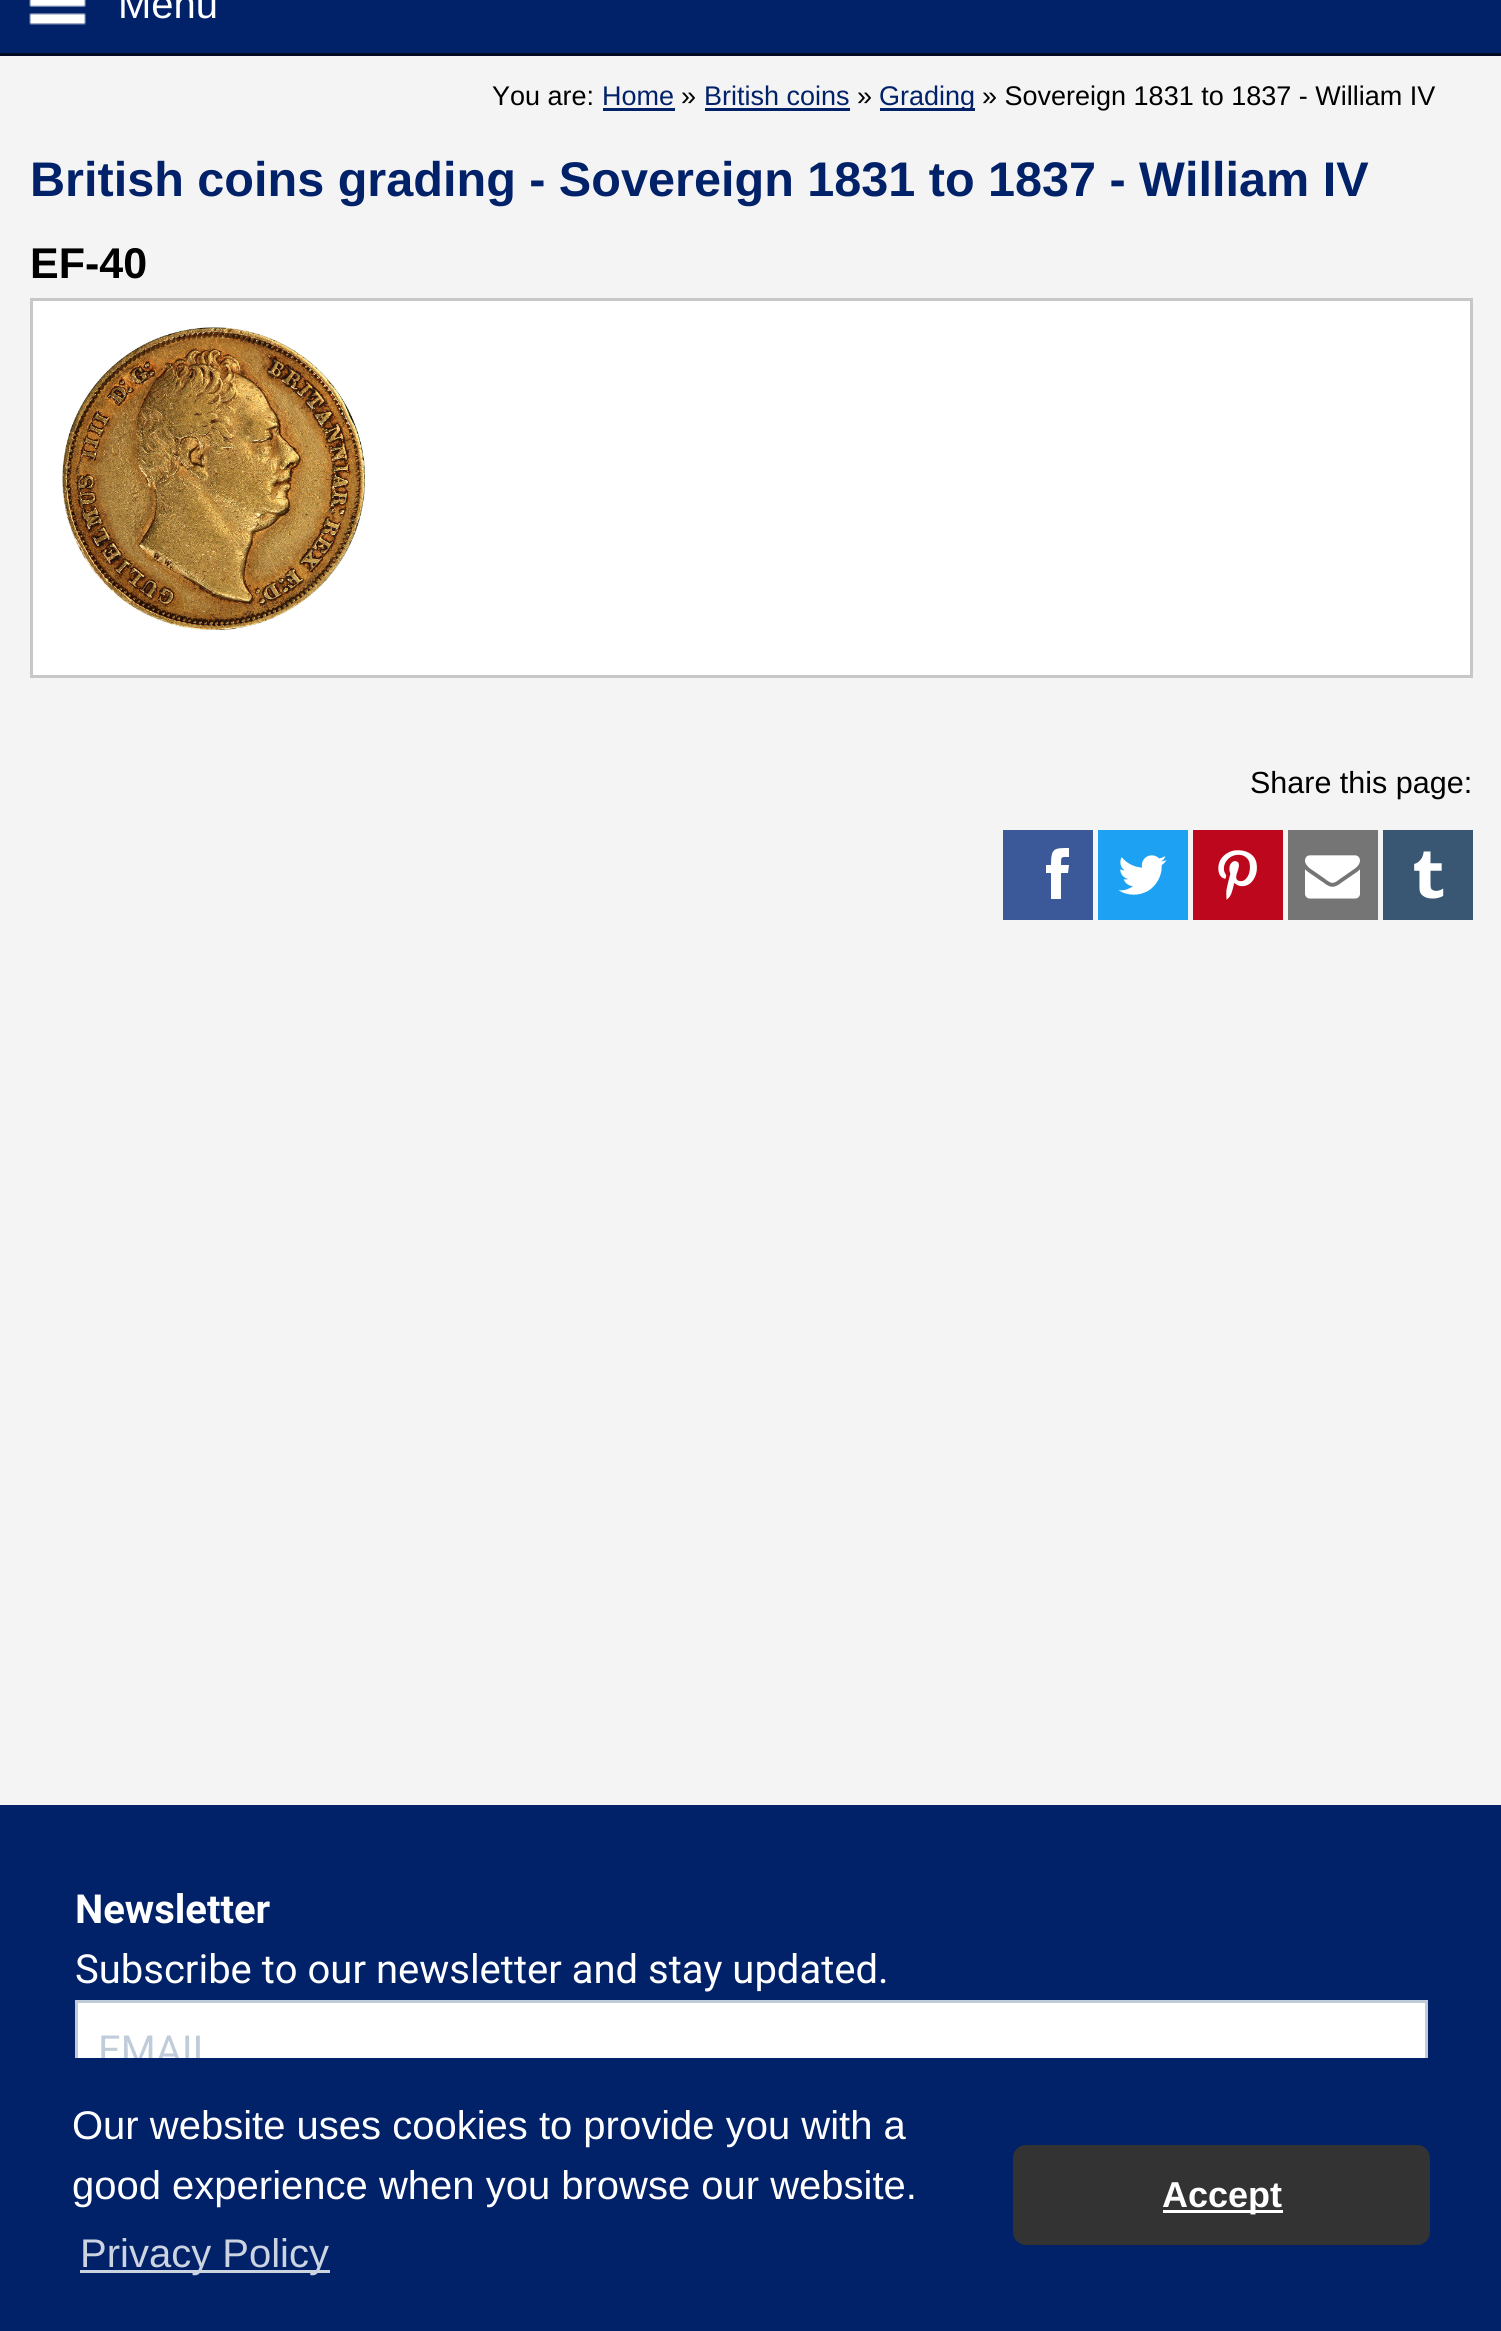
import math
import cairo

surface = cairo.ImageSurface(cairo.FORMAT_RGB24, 1501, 2331)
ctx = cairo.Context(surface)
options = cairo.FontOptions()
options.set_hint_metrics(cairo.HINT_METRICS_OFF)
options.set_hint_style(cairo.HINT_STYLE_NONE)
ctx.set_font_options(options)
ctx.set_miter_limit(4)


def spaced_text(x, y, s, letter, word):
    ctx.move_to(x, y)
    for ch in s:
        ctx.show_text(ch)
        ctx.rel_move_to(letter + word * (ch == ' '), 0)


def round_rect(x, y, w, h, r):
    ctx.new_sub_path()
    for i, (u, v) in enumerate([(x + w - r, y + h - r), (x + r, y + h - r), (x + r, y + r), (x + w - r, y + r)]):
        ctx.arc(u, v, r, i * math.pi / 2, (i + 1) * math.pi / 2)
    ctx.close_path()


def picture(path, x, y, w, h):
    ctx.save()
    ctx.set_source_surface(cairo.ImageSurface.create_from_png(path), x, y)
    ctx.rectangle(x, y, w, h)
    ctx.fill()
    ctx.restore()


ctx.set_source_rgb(0.957, 0.957, 0.957)
ctx.paint()
ctx.set_source_rgb(0.004, 0.129, 0.412)
ctx.rectangle(0, 0, 1501, 53)
ctx.fill()
ctx.set_source_rgb(0, 0.043, 0.145)
ctx.rectangle(0, 53, 1501, 3)
ctx.fill()
picture("img1.png", 29, 0, 57, 25)
ctx.select_font_face("Liberation Sans")
ctx.set_font_size(40)
ctx.set_source_rgb(1, 1, 1)
ctx.move_to(118, 18)
ctx.show_text("Menu")
ctx.set_font_size(27)
ctx.set_source_rgb(0, 0, 0)
ctx.move_to(492, 105)
ctx.show_text("You are:")
ctx.set_source_rgb(0.004, 0.129, 0.412)
ctx.move_to(602, 105)
ctx.show_text("Home")
ctx.rectangle(603, 108, 72, 3)
ctx.fill()
ctx.set_source_rgb(0, 0, 0)
ctx.move_to(681, 105)
ctx.show_text("»")
ctx.set_source_rgb(0.004, 0.129, 0.412)
ctx.move_to(704, 105)
ctx.show_text("British coins")
ctx.rectangle(705, 108, 145, 3)
ctx.fill()
ctx.set_source_rgb(0, 0, 0)
ctx.move_to(857, 105)
ctx.show_text("»")
ctx.set_source_rgb(0.004, 0.129, 0.412)
ctx.rectangle(880, 108, 95, 3)
ctx.fill()
ctx.move_to(879, 105)
ctx.show_text("Grading")
ctx.set_source_rgb(0, 0, 0)
ctx.move_to(982, 105)
ctx.show_text("» Sovereign 1831 to 1837 - William IV")
ctx.select_font_face("Liberation Sans", cairo.FONT_SLANT_NORMAL, cairo.FONT_WEIGHT_BOLD)
ctx.set_font_size(48.6)
ctx.set_source_rgb(0.004, 0.129, 0.412)
spaced_text(30, 196, "British coins grading - Sovereign 1831 to 1837 - William IV", 0, -0.1)
ctx.set_font_size(43)
ctx.set_source_rgb(0, 0, 0)
ctx.move_to(30, 278)
ctx.show_text("EF-40")
ctx.set_source_rgb(1, 1, 1)
ctx.rectangle(31.5, 299.5, 1440, 377)
ctx.fill_preserve()
ctx.set_source_rgb(0.78, 0.78, 0.78)
ctx.set_line_width(3)
ctx.stroke()
picture("img2.png", 62, 327, 303, 303)
ctx.select_font_face("Liberation Sans")
ctx.set_font_size(30.5)
ctx.set_source_rgb(0, 0, 0)
ctx.move_to(1250, 793)
ctx.show_text("Share this page:")
ctx.set_source_rgb(0.231, 0.349, 0.596)
ctx.rectangle(1003, 830, 90, 90)
ctx.fill()
ctx.set_source_rgb(1, 1, 1)
ctx.new_path()
ctx.move_to(1061, 865)
ctx.curve_to(1061, 856, 1061, 857, 1069, 857)
ctx.line_to(1069, 848)
ctx.curve_to(1054, 848, 1051, 848, 1051, 865)
ctx.line_to(1046, 865)
ctx.line_to(1046, 873)
ctx.line_to(1051, 873)
ctx.line_to(1051, 899)
ctx.line_to(1061, 899)
ctx.line_to(1061, 873)
ctx.line_to(1068, 873)
ctx.line_to(1069, 865)
ctx.close_path()
ctx.fill()
ctx.set_source_rgb(0.114, 0.631, 0.949)
ctx.rectangle(1098, 830, 90, 90)
ctx.fill()
picture("img3.png", 1118, 855, 49, 40)
ctx.set_source_rgb(0.741, 0.031, 0.11)
ctx.rectangle(1193, 830, 90, 90)
ctx.fill()
picture("img4.png", 1218, 850, 39, 50)
ctx.set_source_rgb(0.459, 0.459, 0.459)
ctx.rectangle(1288, 830, 90, 90)
ctx.fill()
picture("img5.png", 1305, 855, 55, 44)
ctx.set_source_rgb(0.224, 0.341, 0.451)
ctx.rectangle(1383, 830, 90, 90)
ctx.fill()
picture("img6.png", 1414, 851, 30, 48)
ctx.set_source_rgb(0.004, 0.129, 0.412)
ctx.rectangle(0, 1805, 1501, 253)
ctx.fill()
ctx.select_font_face("Roboto", cairo.FONT_SLANT_NORMAL, cairo.FONT_WEIGHT_BOLD)
ctx.set_font_size(40)
ctx.set_source_rgb(1, 1, 1)
ctx.move_to(75, 1923)
ctx.show_text("Newsletter")
ctx.select_font_face("Roboto")
ctx.move_to(75, 1983)
ctx.show_text("Subscribe to our newsletter and stay updated.")
ctx.rectangle(78, 2003, 1347, 55)
ctx.fill()
ctx.rectangle(76.5, 2001.5, 1350, 97)
ctx.set_source_rgb(0.753, 0.8, 0.855)
ctx.stroke()
ctx.move_to(98, 2064)
ctx.show_text("EMAIL")
ctx.set_source_rgb(0.004, 0.129, 0.412)
ctx.rectangle(0, 2058, 1501, 273)
ctx.fill()
ctx.select_font_face("Liberation Sans")
ctx.set_source_rgb(1, 1, 1)
ctx.move_to(72, 2139)
ctx.show_text("Our website uses cookies to provide you with a")
ctx.move_to(72, 2199)
ctx.show_text("good experience when you browse our website.")
ctx.set_source_rgb(0.8, 0.827, 0.882)
ctx.rectangle(80, 2270, 250, 3)
ctx.fill()
ctx.move_to(80, 2267)
ctx.show_text("Privacy Policy")
ctx.set_source_rgb(0.2, 0.2, 0.2)
round_rect(1013, 2145, 417, 100, 13)
ctx.fill()
ctx.set_source_rgb(1, 1, 1)
ctx.rectangle(1163, 2210, 120, 3)
ctx.fill()
ctx.select_font_face("Liberation Sans", cairo.FONT_SLANT_NORMAL, cairo.FONT_WEIGHT_BOLD)
ctx.set_font_size(36)
ctx.move_to(1162, 2207)
ctx.show_text("Accept")
surface.write_to_png("page.png")
